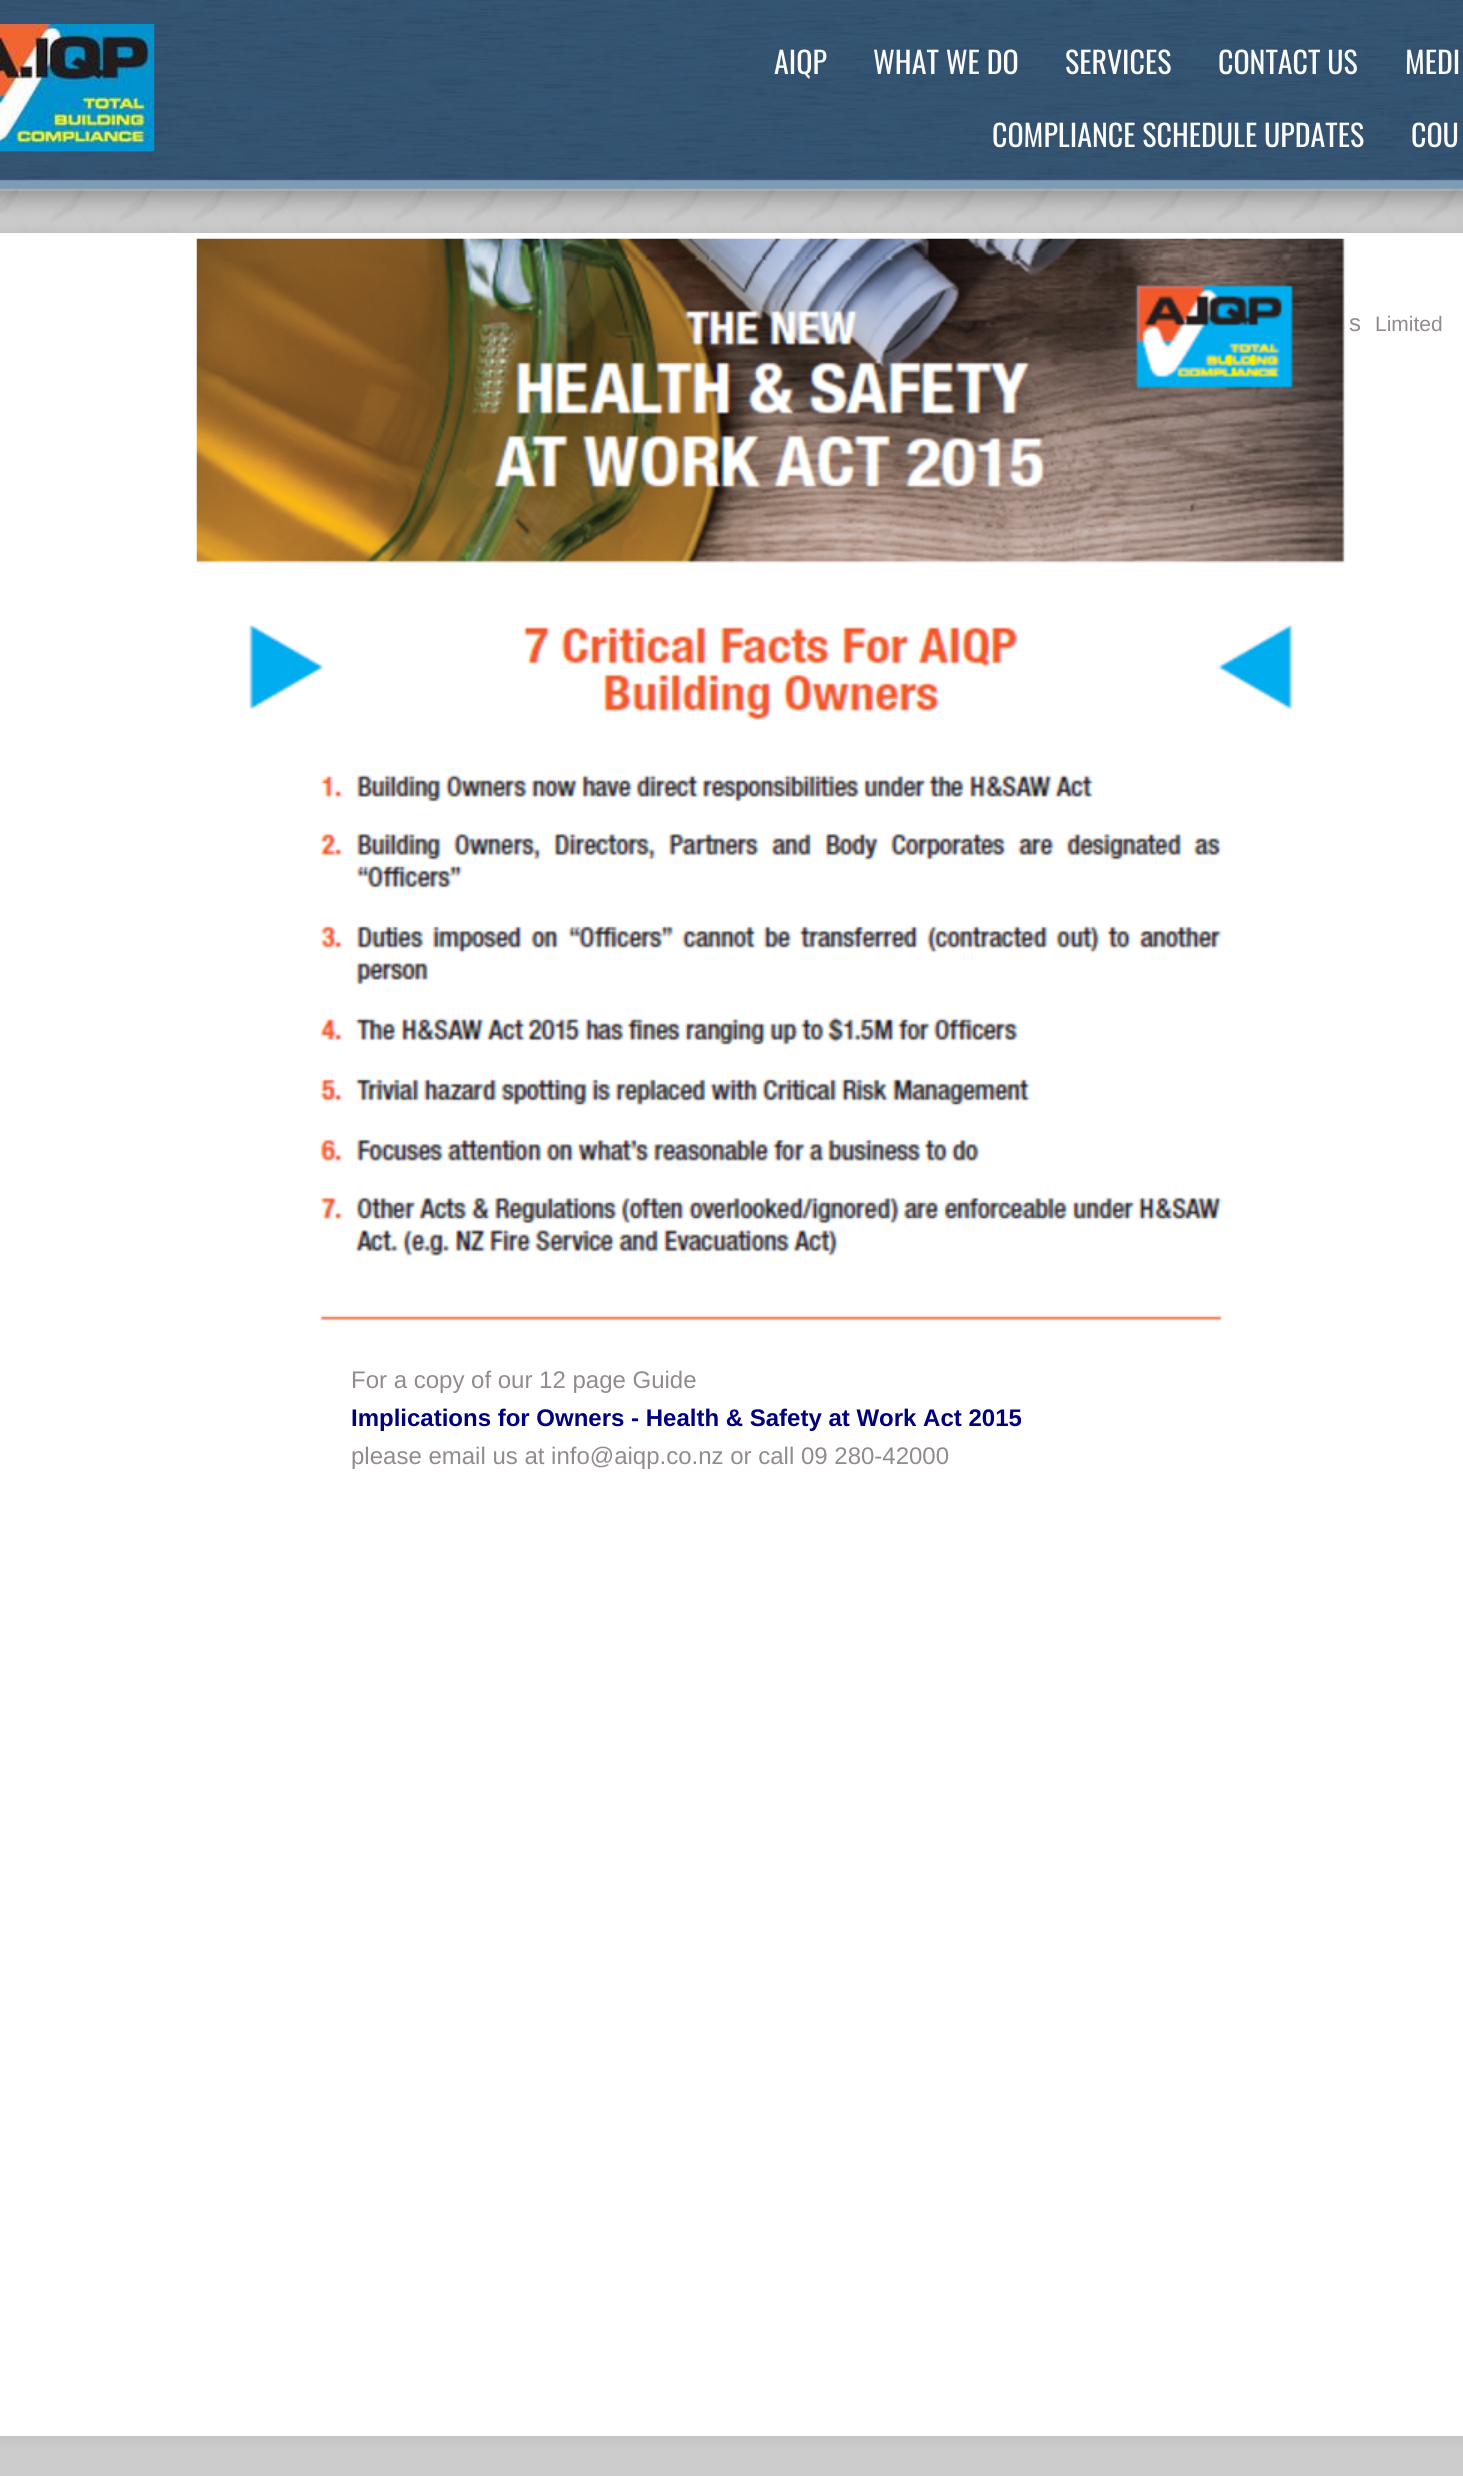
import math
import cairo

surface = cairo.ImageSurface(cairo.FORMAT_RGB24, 1463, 2476)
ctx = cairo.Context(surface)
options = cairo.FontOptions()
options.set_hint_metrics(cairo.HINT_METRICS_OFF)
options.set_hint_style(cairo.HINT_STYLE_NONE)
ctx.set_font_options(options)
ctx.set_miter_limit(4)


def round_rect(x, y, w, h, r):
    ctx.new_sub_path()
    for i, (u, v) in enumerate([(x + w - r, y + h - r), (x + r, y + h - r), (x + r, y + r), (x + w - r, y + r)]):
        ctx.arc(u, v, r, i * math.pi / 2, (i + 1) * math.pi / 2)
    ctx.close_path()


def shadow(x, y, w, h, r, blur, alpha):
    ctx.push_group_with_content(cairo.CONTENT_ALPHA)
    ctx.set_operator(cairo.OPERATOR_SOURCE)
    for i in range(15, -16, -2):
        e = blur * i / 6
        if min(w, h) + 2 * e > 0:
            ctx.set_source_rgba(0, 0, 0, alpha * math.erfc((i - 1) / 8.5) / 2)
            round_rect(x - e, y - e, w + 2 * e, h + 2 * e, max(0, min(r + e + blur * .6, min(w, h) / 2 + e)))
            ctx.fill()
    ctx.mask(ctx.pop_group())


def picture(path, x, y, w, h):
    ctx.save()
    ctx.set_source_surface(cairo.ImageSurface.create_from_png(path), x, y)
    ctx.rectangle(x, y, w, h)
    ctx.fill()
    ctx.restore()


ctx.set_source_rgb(0.8, 0.8, 0.8)
ctx.paint()
picture("img1.png", 0, 0, 1463, 233)
ctx.set_source_rgb(0, 0, 0)
shadow(0, 233, 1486, 2203, 0, 7.5, 0.1)
ctx.set_source_rgb(1, 1, 1)
ctx.rectangle(0, 233, 1463, 2203)
ctx.fill()
picture("img2.png", 0, 24, 155, 128)
ctx.select_font_face("Oswald")
ctx.set_font_size(30)
ctx.set_source_rgb(0.98, 0.98, 0.98)
ctx.move_to(774, 74)
ctx.show_text("AIQP")
ctx.move_to(873, 74)
ctx.show_text("WHAT WE DO")
ctx.move_to(1065, 74)
ctx.show_text("SERVICES")
ctx.move_to(1218, 74)
ctx.show_text("CONTACT US")
ctx.move_to(1405, 74)
ctx.show_text("MEDI")
ctx.move_to(992, 147)
ctx.show_text("COMPLIANCE SCHEDULE UPDATES")
ctx.move_to(1411, 147)
ctx.show_text("COU")
picture("img3.png", 196, 238, 1152, 1083)
ctx.select_font_face("Liberation Sans")
ctx.set_font_size(24)
ctx.set_source_rgb(0.576, 0.545, 0.545)
ctx.move_to(1349, 331)
ctx.show_text("s")
ctx.set_font_size(21)
ctx.move_to(1375, 331)
ctx.show_text("Limited")
ctx.set_font_size(24)
ctx.move_to(351, 1388)
ctx.show_text("For a copy of our 12 page Guide")
ctx.select_font_face("Liberation Sans", cairo.FONT_SLANT_NORMAL, cairo.FONT_WEIGHT_BOLD)
ctx.set_source_rgb(0, 0, 0.502)
ctx.move_to(351, 1426)
ctx.show_text("Implications for Owners - Health & Safety at Work Act 2015")
ctx.select_font_face("Liberation Sans")
ctx.set_source_rgb(0.576, 0.545, 0.545)
ctx.move_to(351, 1464)
ctx.show_text("please email us at info@aiqp.co.nz or call 09 280-42000")
surface.write_to_png("page.png")
